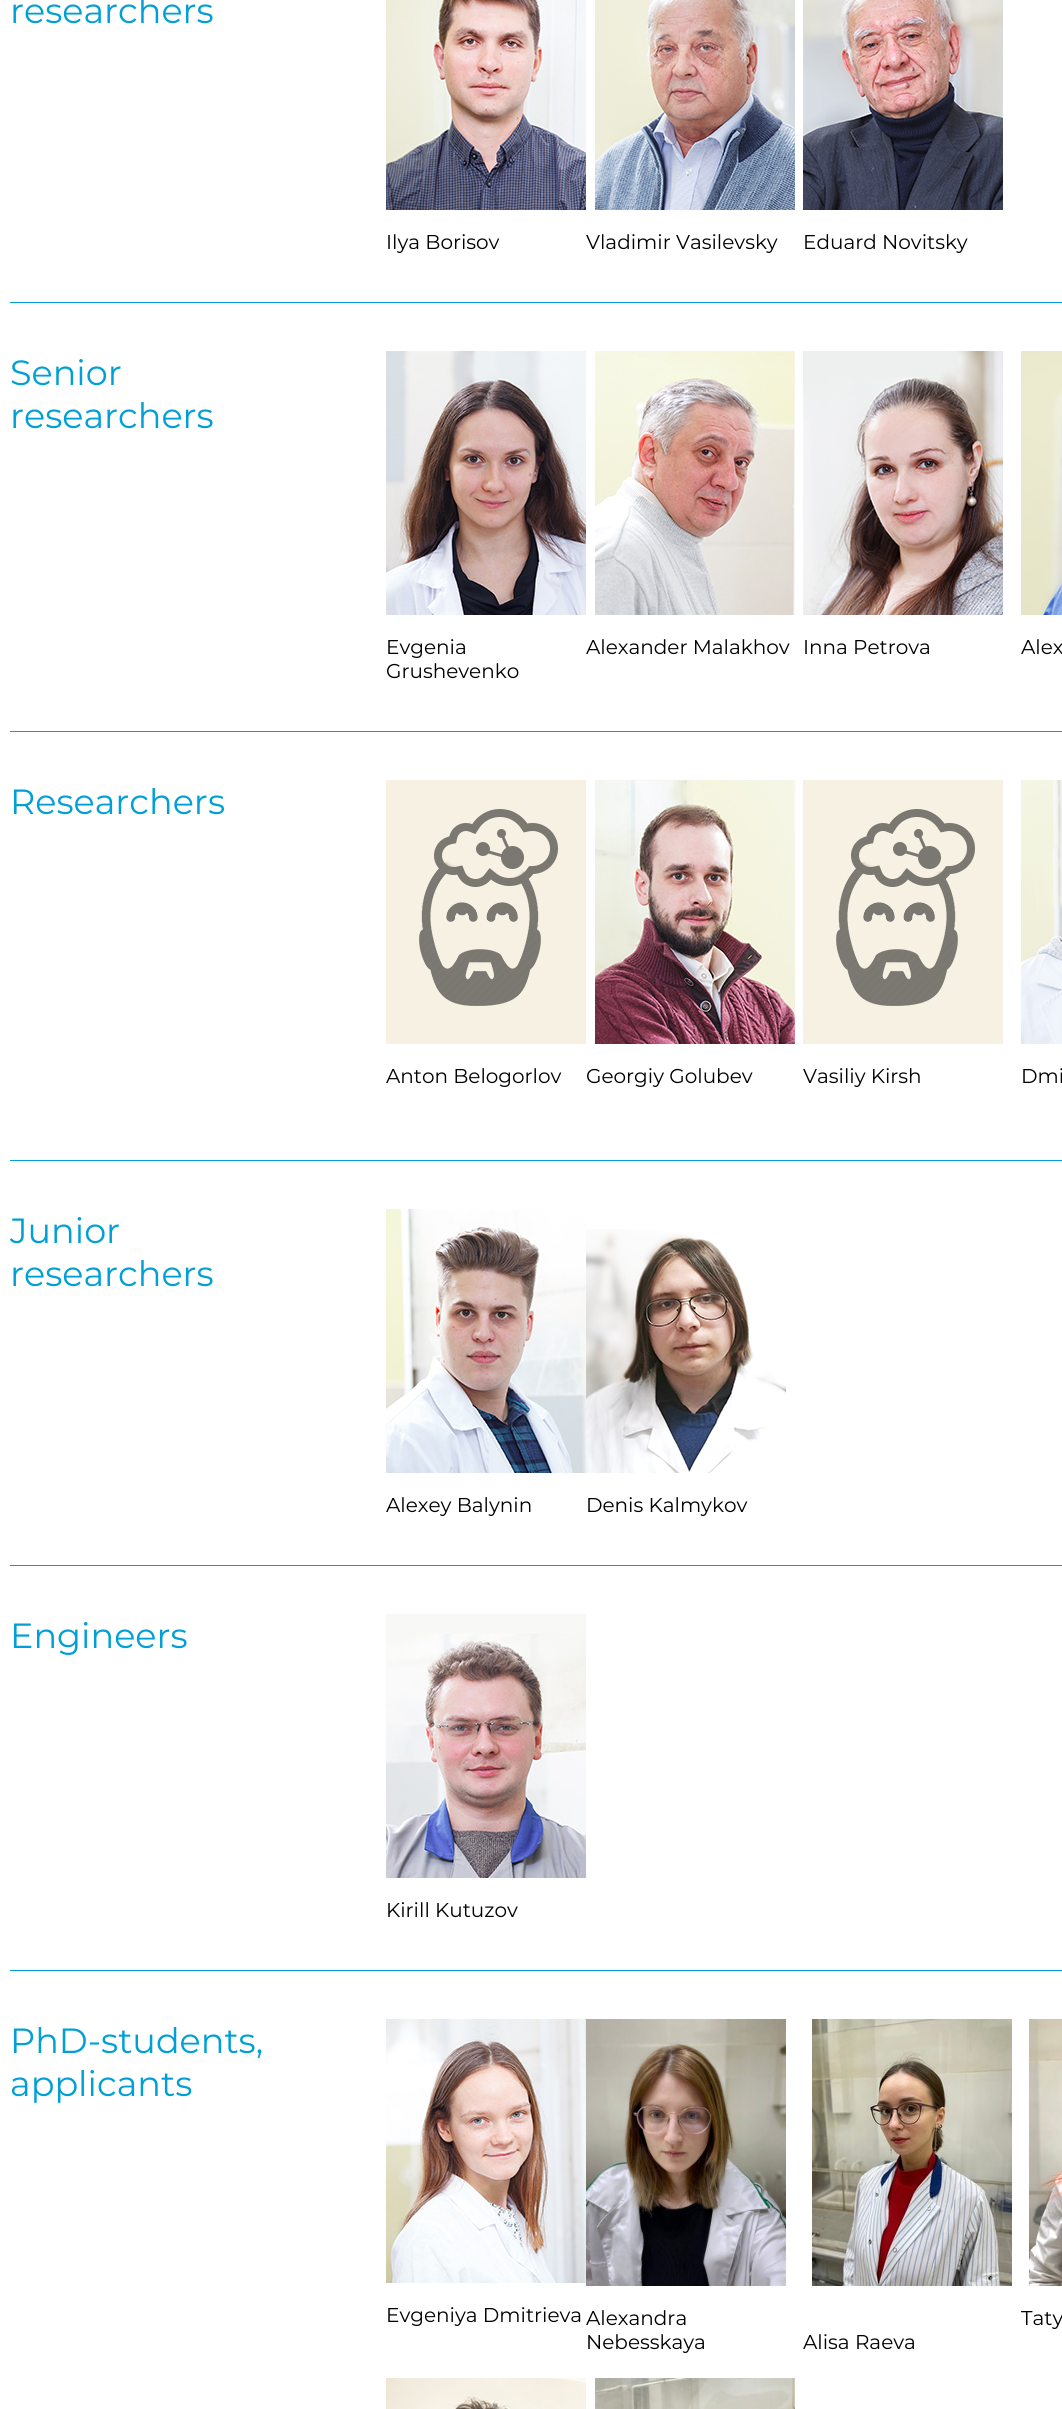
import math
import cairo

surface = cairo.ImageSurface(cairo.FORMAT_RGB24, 1062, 2409)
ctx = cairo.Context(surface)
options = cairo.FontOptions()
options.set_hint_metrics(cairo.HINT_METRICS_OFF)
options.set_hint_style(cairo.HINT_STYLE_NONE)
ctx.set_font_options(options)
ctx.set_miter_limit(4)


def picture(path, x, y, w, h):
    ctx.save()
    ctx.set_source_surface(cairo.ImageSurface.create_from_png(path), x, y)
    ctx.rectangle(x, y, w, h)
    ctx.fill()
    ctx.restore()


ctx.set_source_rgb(1, 1, 1)
ctx.paint()
ctx.select_font_face("Montserrat")
ctx.set_font_size(35)
ctx.set_source_rgb(0, 0.624, 0.839)
ctx.move_to(10, 23)
ctx.show_text("researchers")
picture("img1.png", 386, 0, 200, 210)
ctx.set_font_size(20)
ctx.set_source_rgb(0, 0, 0)
ctx.move_to(386, 249)
ctx.show_text("Ilya Borisov")
picture("img2.png", 595, 0, 200, 210)
ctx.move_to(586, 249)
ctx.show_text("Vladimir Vasilevsky")
picture("img3.png", 803, 0, 200, 210)
ctx.move_to(803, 249)
ctx.show_text("Eduard Novitsky")
ctx.set_source_rgb(0, 0.624, 0.839)
ctx.rectangle(10, 302, 1052, 1)
ctx.fill()
ctx.set_font_size(35)
ctx.move_to(10, 385)
ctx.show_text("Senior")
ctx.move_to(10, 428)
ctx.show_text("researchers")
picture("img4.png", 386, 351, 200, 264)
ctx.set_font_size(20)
ctx.set_source_rgb(0, 0, 0)
ctx.move_to(386, 654)
ctx.show_text("Evgenia")
ctx.move_to(386, 678)
ctx.show_text("Grushevenko")
picture("img5.png", 595, 351, 200, 264)
ctx.move_to(586, 654)
ctx.show_text("Alexander Malakhov")
picture("img6.png", 803, 351, 200, 264)
ctx.move_to(803, 654)
ctx.show_text("Inna Petrova")
picture("img7.png", 1021, 351, 41, 264)
ctx.move_to(1021, 654)
ctx.show_text("Alex")
ctx.set_source_rgb(0, 0.624, 0.839)
ctx.rectangle(10, 731, 1052, 1)
ctx.fill()
ctx.set_font_size(35)
ctx.move_to(10, 814)
ctx.show_text("Researchers")
picture("img8.png", 386, 780, 200, 264)
ctx.set_font_size(20)
ctx.set_source_rgb(0, 0, 0)
ctx.move_to(386, 1083)
ctx.show_text("Anton Belogorlov")
picture("img9.png", 595, 780, 200, 264)
ctx.move_to(586, 1083)
ctx.show_text("Georgiy Golubev")
picture("img8.png", 803, 780, 200, 264)
ctx.move_to(803, 1083)
ctx.show_text("Vasiliy Kirsh")
picture("img10.png", 1021, 780, 41, 264)
ctx.move_to(1021, 1083)
ctx.show_text("Dmi")
ctx.set_source_rgb(0, 0.624, 0.839)
ctx.rectangle(10, 1160, 1052, 1)
ctx.fill()
ctx.set_font_size(35)
ctx.move_to(10, 1243)
ctx.show_text("Junior")
ctx.move_to(10, 1286)
ctx.show_text("researchers")
picture("img11.png", 386, 1209, 200, 264)
ctx.set_font_size(20)
ctx.set_source_rgb(0, 0, 0)
ctx.move_to(386, 1512)
ctx.show_text("Alexey Balynin")
picture("img12.png", 586, 1229, 200, 244)
ctx.move_to(586, 1512)
ctx.show_text("Denis Kalmykov")
ctx.set_source_rgb(0, 0.624, 0.839)
ctx.rectangle(10, 1565, 1052, 1)
ctx.fill()
ctx.set_font_size(35)
ctx.move_to(10, 1648)
ctx.show_text("Engineers")
picture("img13.png", 386, 1614, 200, 264)
ctx.set_font_size(20)
ctx.set_source_rgb(0, 0, 0)
ctx.move_to(386, 1917)
ctx.show_text("Kirill Kutuzov")
ctx.set_source_rgb(0, 0.624, 0.839)
ctx.rectangle(10, 1970, 1052, 1)
ctx.fill()
ctx.set_font_size(35)
ctx.move_to(10, 2053)
ctx.show_text("PhD-students,")
ctx.move_to(10, 2096)
ctx.show_text("applicants")
picture("img14.png", 386, 2019, 200, 264)
ctx.set_font_size(20)
ctx.set_source_rgb(0, 0, 0)
ctx.move_to(386, 2322)
ctx.show_text("Evgeniya Dmitrieva")
picture("img15.png", 586, 2019, 200, 267)
ctx.move_to(586, 2325)
ctx.show_text("Alexandra")
ctx.move_to(586, 2349)
ctx.show_text("Nebesskaya")
picture("img16.png", 1029, 2019, 33, 267)
ctx.move_to(1021, 2325)
ctx.show_text("Taty")
picture("img17.png", 812, 2019, 200, 267)
ctx.move_to(803, 2349)
ctx.show_text("Alisa Raeva")
picture("img18.png", 386, 2378, 200, 31)
picture("img19.png", 595, 2378, 200, 31)
surface.write_to_png("page.png")
